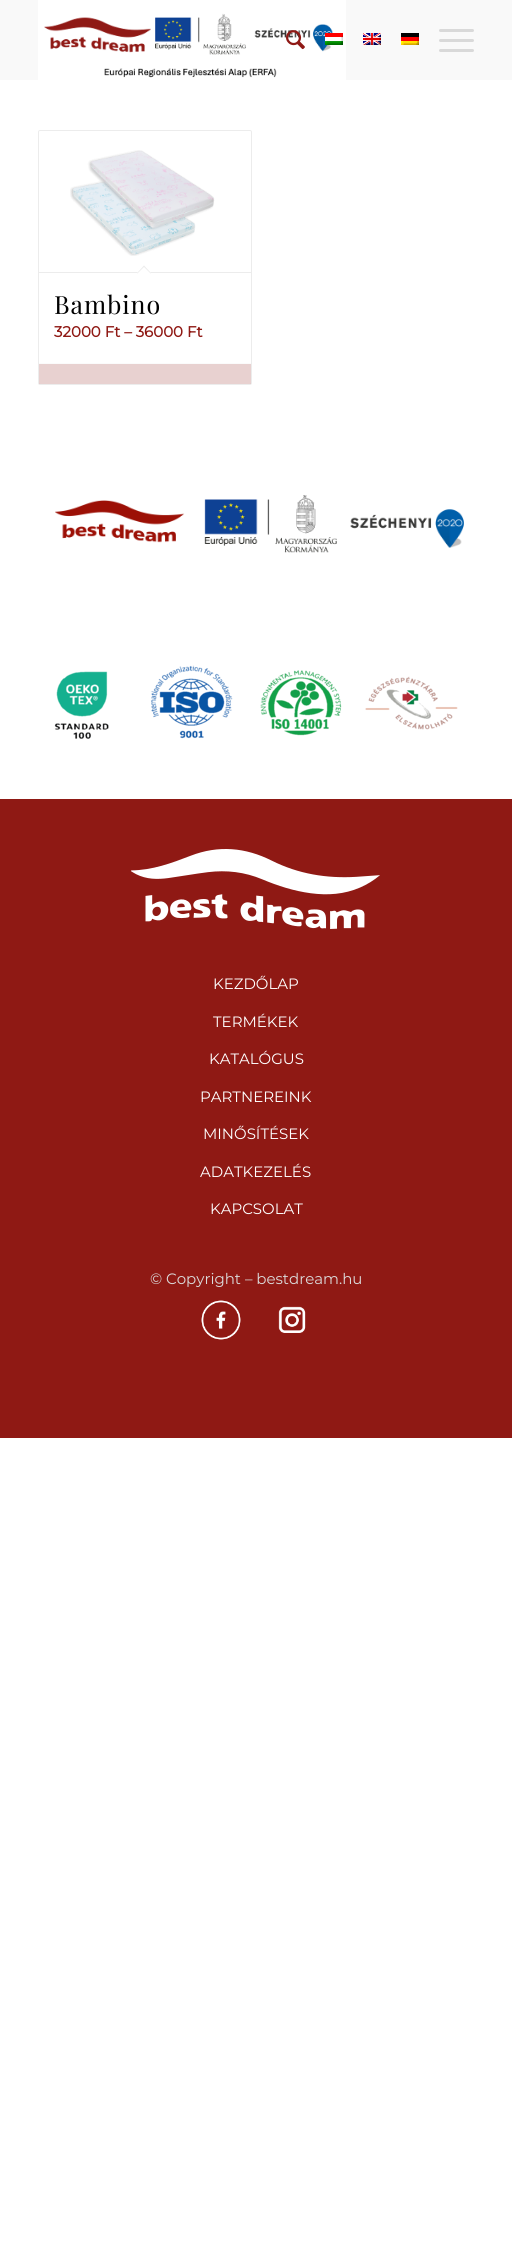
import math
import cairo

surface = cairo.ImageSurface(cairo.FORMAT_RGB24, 512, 2259)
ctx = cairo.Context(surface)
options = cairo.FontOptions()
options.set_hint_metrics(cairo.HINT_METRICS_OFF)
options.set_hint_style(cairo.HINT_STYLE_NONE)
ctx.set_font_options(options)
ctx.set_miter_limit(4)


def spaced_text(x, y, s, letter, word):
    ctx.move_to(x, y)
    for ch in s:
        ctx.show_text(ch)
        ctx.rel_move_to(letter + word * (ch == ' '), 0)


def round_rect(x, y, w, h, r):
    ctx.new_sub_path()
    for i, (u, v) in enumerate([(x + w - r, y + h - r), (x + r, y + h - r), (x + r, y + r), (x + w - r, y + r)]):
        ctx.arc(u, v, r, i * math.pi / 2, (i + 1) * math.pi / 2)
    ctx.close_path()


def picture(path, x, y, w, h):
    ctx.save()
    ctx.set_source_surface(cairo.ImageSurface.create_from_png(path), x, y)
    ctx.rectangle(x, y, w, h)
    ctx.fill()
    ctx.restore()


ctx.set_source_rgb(1, 1, 1)
ctx.paint()
ctx.set_source_rgb(0.973, 0.973, 0.973)
ctx.rectangle(0, 0, 512, 80)
ctx.fill()
picture("img1.png", 38, 0, 308, 80)
picture("img2.png", 286, 30, 19, 20)
picture("img3.png", 325, 33, 18, 12)
picture("img4.png", 363, 33, 18, 12)
picture("img5.png", 401, 33, 18, 12)
ctx.set_source_rgb(0.851, 0.851, 0.851)
round_rect(439, 39, 35, 3, 1.5)
ctx.fill()
round_rect(439, 29, 35, 3, 1.5)
ctx.fill()
round_rect(439, 49, 35, 3, 1.5)
ctx.fill()
round_rect(38.5, 130.5, 213, 254, 1.5)
ctx.set_source_rgb(0.922, 0.922, 0.922)
ctx.set_line_width(1)
ctx.stroke()
picture("img6.png", 70, 150, 145, 106)
ctx.rectangle(39, 272, 212, 1)
ctx.fill()
ctx.set_source_rgb(1, 1, 1)
ctx.new_path()
ctx.move_to(144, 265.5)
ctx.line_to(151, 273)
ctx.line_to(144, 280)
ctx.line_to(137, 273)
ctx.close_path()
ctx.fill()
ctx.set_source_rgb(0.922, 0.922, 0.922)
ctx.new_path()
ctx.move_to(144, 265.5)
ctx.line_to(151, 273)
ctx.line_to(150.5, 273.5)
ctx.line_to(143.5, 266.5)
ctx.close_path()
ctx.fill()
ctx.new_path()
ctx.move_to(144, 265.5)
ctx.line_to(144.5, 266.5)
ctx.line_to(137.5, 273.5)
ctx.line_to(137, 273)
ctx.close_path()
ctx.fill()
ctx.select_font_face("Playfair Display")
ctx.set_font_size(25)
ctx.set_source_rgb(0, 0, 0)
spaced_text(54, 314, "Bambino", 1, 0)
ctx.select_font_face("Montserrat", cairo.FONT_SLANT_NORMAL, cairo.FONT_WEIGHT_BOLD)
ctx.set_font_size(15)
ctx.set_source_rgb(0.561, 0.098, 0.082)
ctx.move_to(54, 337)
ctx.show_text("32000 Ft – 36000 Ft")
ctx.set_source_rgba(0.561, 0.098, 0.082, 0.2)
ctx.rectangle(39, 364, 212, 20)
ctx.fill()
ctx.set_source_rgb(0.984, 0.984, 0.984)
ctx.rectangle(39, 363, 212, 1)
ctx.fill()
picture("img7.png", 55, 495, 409, 58)
picture("img8.png", 54, 665, 404, 74)
ctx.set_source_rgb(0.561, 0.098, 0.082)
ctx.rectangle(0, 799, 512, 639)
ctx.fill()
picture("img9.png", 131, 849, 249, 80)
ctx.select_font_face("Montserrat Thin")
ctx.set_source_rgb(1, 1, 1)
ctx.move_to(213, 989)
ctx.show_text("KEZDŐLAP")
ctx.move_to(213, 1027)
ctx.show_text("TERMÉKEK")
ctx.move_to(209, 1064)
ctx.show_text("KATALÓGUS")
ctx.move_to(200, 1102)
ctx.show_text("PARTNEREINK")
ctx.move_to(203, 1139)
ctx.show_text("MINŐSÍTÉSEK")
ctx.move_to(200, 1177)
ctx.show_text("ADATKEZELÉS")
ctx.move_to(210, 1214)
ctx.show_text("KAPCSOLAT")
ctx.set_source_rgb(0.859, 0.859, 0.859)
ctx.move_to(150, 1284)
ctx.show_text("© Copyright – bestdream.hu")
picture("img10.png", 201, 1300, 40, 40)
picture("img11.png", 278, 1306, 28, 27)
surface.write_to_png("page.png")
